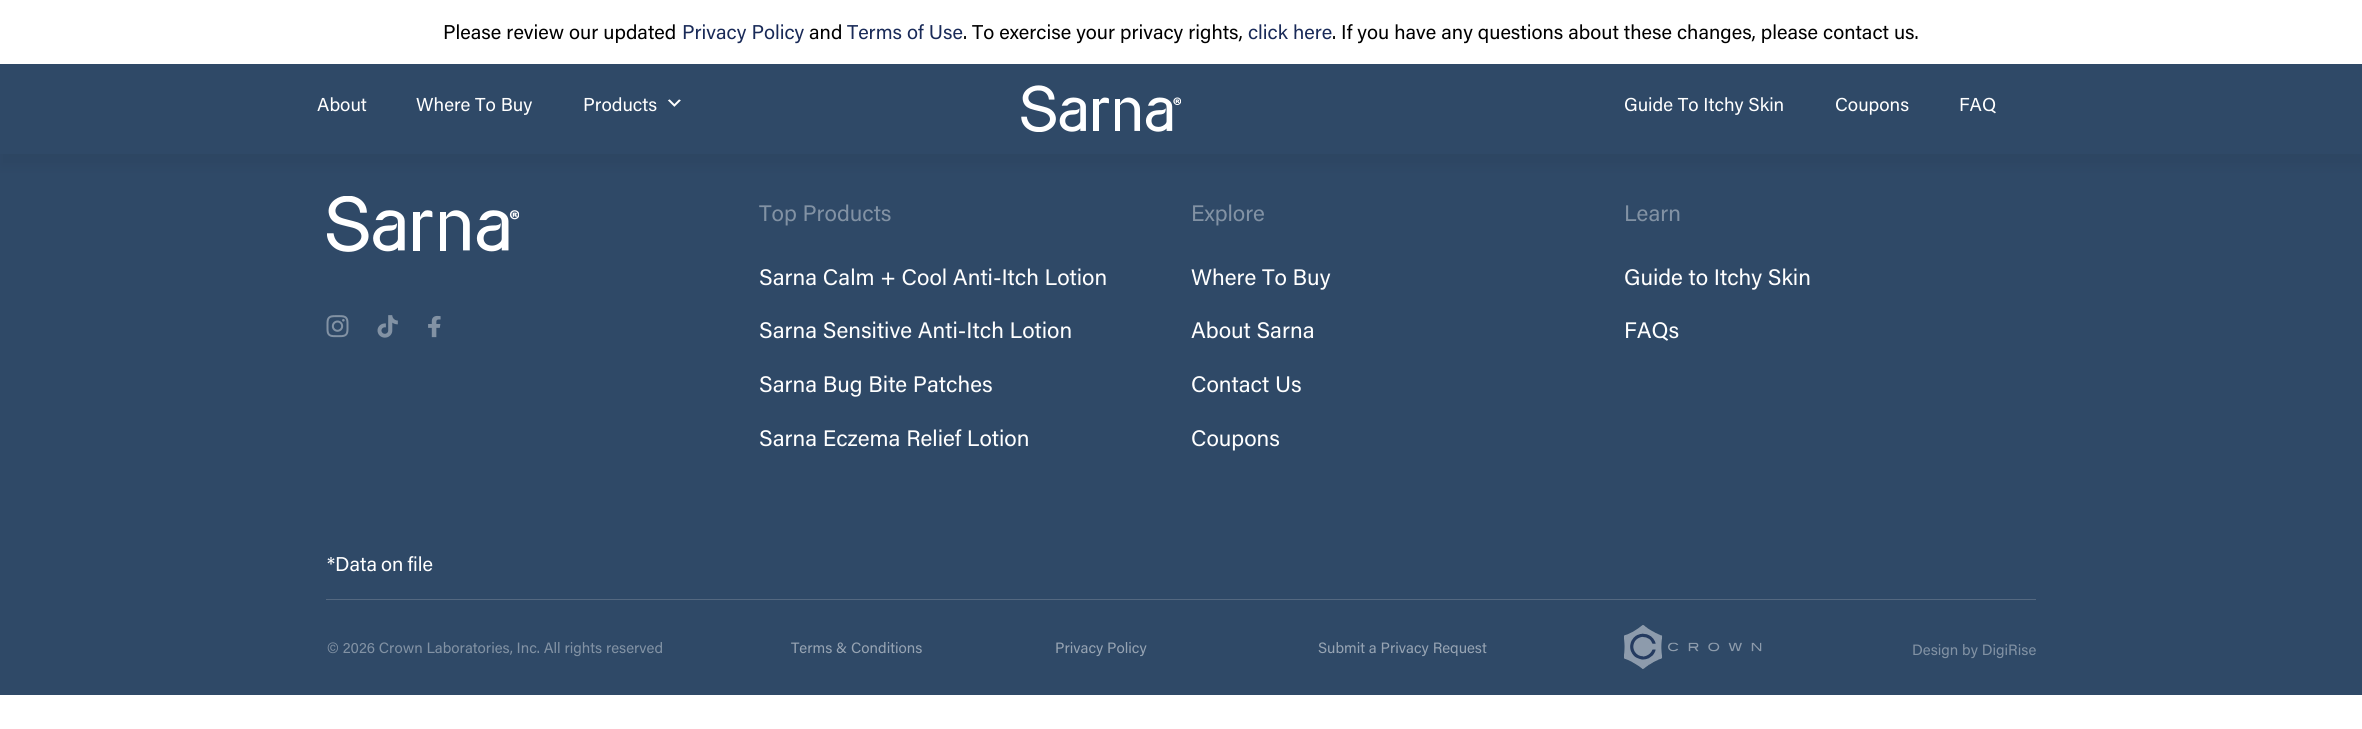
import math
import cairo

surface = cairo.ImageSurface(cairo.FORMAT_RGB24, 2362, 729)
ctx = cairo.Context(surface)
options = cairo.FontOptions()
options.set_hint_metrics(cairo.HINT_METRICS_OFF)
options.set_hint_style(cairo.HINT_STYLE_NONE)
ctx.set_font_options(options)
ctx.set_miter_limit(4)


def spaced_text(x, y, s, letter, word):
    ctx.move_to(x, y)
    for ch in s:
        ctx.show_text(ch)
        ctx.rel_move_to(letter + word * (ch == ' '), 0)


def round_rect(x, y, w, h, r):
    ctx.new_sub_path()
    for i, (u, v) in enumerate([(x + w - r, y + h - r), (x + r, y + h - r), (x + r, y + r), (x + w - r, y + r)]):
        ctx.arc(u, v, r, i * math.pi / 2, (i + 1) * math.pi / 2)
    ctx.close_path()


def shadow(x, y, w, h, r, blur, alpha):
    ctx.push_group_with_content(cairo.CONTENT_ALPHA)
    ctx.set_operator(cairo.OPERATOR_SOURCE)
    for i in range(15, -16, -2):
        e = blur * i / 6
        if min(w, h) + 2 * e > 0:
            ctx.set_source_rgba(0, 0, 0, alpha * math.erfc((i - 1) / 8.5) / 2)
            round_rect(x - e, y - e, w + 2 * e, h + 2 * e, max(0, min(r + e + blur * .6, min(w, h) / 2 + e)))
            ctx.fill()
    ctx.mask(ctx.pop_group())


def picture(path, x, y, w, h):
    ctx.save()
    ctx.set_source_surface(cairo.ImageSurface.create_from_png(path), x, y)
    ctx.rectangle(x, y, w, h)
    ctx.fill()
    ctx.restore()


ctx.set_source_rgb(1, 1, 1)
ctx.paint()
ctx.set_source_rgb(0.184, 0.286, 0.404)
ctx.rectangle(0, 154, 2362, 541)
ctx.fill()
ctx.set_source_rgb(0, 0, 0)
shadow(0, 76, 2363, 90, 0, 6, 0.05)
ctx.select_font_face("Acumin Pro")
ctx.set_font_size(20)
ctx.set_source_rgb(0, 0, 0)
ctx.move_to(443, 39)
ctx.show_text("Please review our updated")
ctx.set_source_rgb(0.098, 0.165, 0.345)
ctx.move_to(682, 39)
ctx.show_text("Privacy Policy")
ctx.set_source_rgb(0, 0, 0)
ctx.move_to(809, 39)
ctx.show_text("and")
ctx.set_source_rgb(0.098, 0.165, 0.345)
ctx.move_to(847, 39)
ctx.show_text("Terms of Use")
ctx.set_source_rgb(0, 0, 0)
ctx.move_to(963, 39)
ctx.show_text(". To exercise your privacy rights,")
ctx.set_source_rgb(0.098, 0.165, 0.345)
ctx.move_to(1248, 39)
ctx.show_text("click here")
ctx.set_source_rgb(0, 0, 0)
ctx.move_to(1332, 39)
ctx.show_text(". If you have any questions about these changes, please contact us.")
ctx.set_source_rgb(0.184, 0.286, 0.404)
ctx.rectangle(0, 64, 2362, 90)
ctx.fill()
picture("img1.png", 1021, 85, 160, 47)
ctx.set_font_size(18.75)
ctx.set_source_rgb(1, 1, 1)
ctx.move_to(317, 111)
ctx.show_text("About")
ctx.move_to(416, 111)
ctx.show_text("Where To Buy")
ctx.move_to(583, 111)
ctx.show_text("Products")
picture("img2.png", 667, 99, 14, 8)
ctx.move_to(1624, 111)
ctx.show_text("Guide To Itchy Skin")
ctx.move_to(1835, 111)
ctx.show_text("Coupons")
ctx.move_to(1959, 111)
ctx.show_text("FAQ")
picture("img3.png", 327, 196, 192, 56)
picture("img4.png", 326, 315, 23, 23)
picture("img5.png", 377, 315, 21, 23)
picture("img6.png", 428, 315, 13, 23)
ctx.set_font_size(22.5)
ctx.set_source_rgb(0.51, 0.573, 0.643)
ctx.move_to(759, 221)
ctx.show_text("Top Products")
ctx.set_source_rgb(1, 1, 1)
ctx.move_to(759, 285)
ctx.show_text("Sarna Calm + Cool Anti-Itch Lotion")
ctx.move_to(759, 338)
ctx.show_text("Sarna Sensitive Anti-Itch Lotion")
ctx.move_to(759, 392)
ctx.show_text("Sarna Bug Bite Patches")
ctx.move_to(759, 446)
ctx.show_text("Sarna Eczema Relief Lotion")
ctx.set_source_rgb(0.51, 0.573, 0.643)
ctx.move_to(1191, 221)
ctx.show_text("Explore")
ctx.set_source_rgb(1, 1, 1)
ctx.move_to(1191, 285)
ctx.show_text("Where To Buy")
ctx.move_to(1191, 338)
ctx.show_text("About Sarna")
ctx.move_to(1191, 392)
ctx.show_text("Contact Us")
ctx.move_to(1191, 446)
ctx.show_text("Coupons")
ctx.set_source_rgb(0.51, 0.573, 0.643)
ctx.move_to(1624, 221)
ctx.show_text("Learn")
ctx.set_source_rgb(1, 1, 1)
ctx.move_to(1624, 285)
ctx.show_text("Guide to Itchy Skin")
ctx.move_to(1624, 338)
ctx.show_text("FAQs")
ctx.select_font_face("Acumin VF")
ctx.set_font_size(20)
spaced_text(327, 571, "*Data on file", 0, -1)
ctx.set_source_rgb(0.329, 0.408, 0.502)
ctx.rectangle(326, 599, 1710, 1)
ctx.fill()
ctx.select_font_face("Acumin Pro")
ctx.set_font_size(15)
ctx.set_source_rgb(0.51, 0.573, 0.643)
ctx.move_to(327, 653)
ctx.show_text("© 2026 Crown Laboratories, Inc. All rights reserved")
ctx.set_source_rgb(0.592, 0.643, 0.702)
ctx.move_to(791, 653)
ctx.show_text("Terms & Conditions")
ctx.move_to(1055, 653)
ctx.show_text("Privacy Policy")
ctx.move_to(1318, 653)
ctx.show_text("Submit a Privacy Request")
picture("img7.png", 1624, 625, 138, 44)
ctx.set_source_rgb(0.51, 0.573, 0.643)
ctx.move_to(1912, 655)
ctx.show_text("Design by DigiRise")
surface.write_to_png("page.png")
